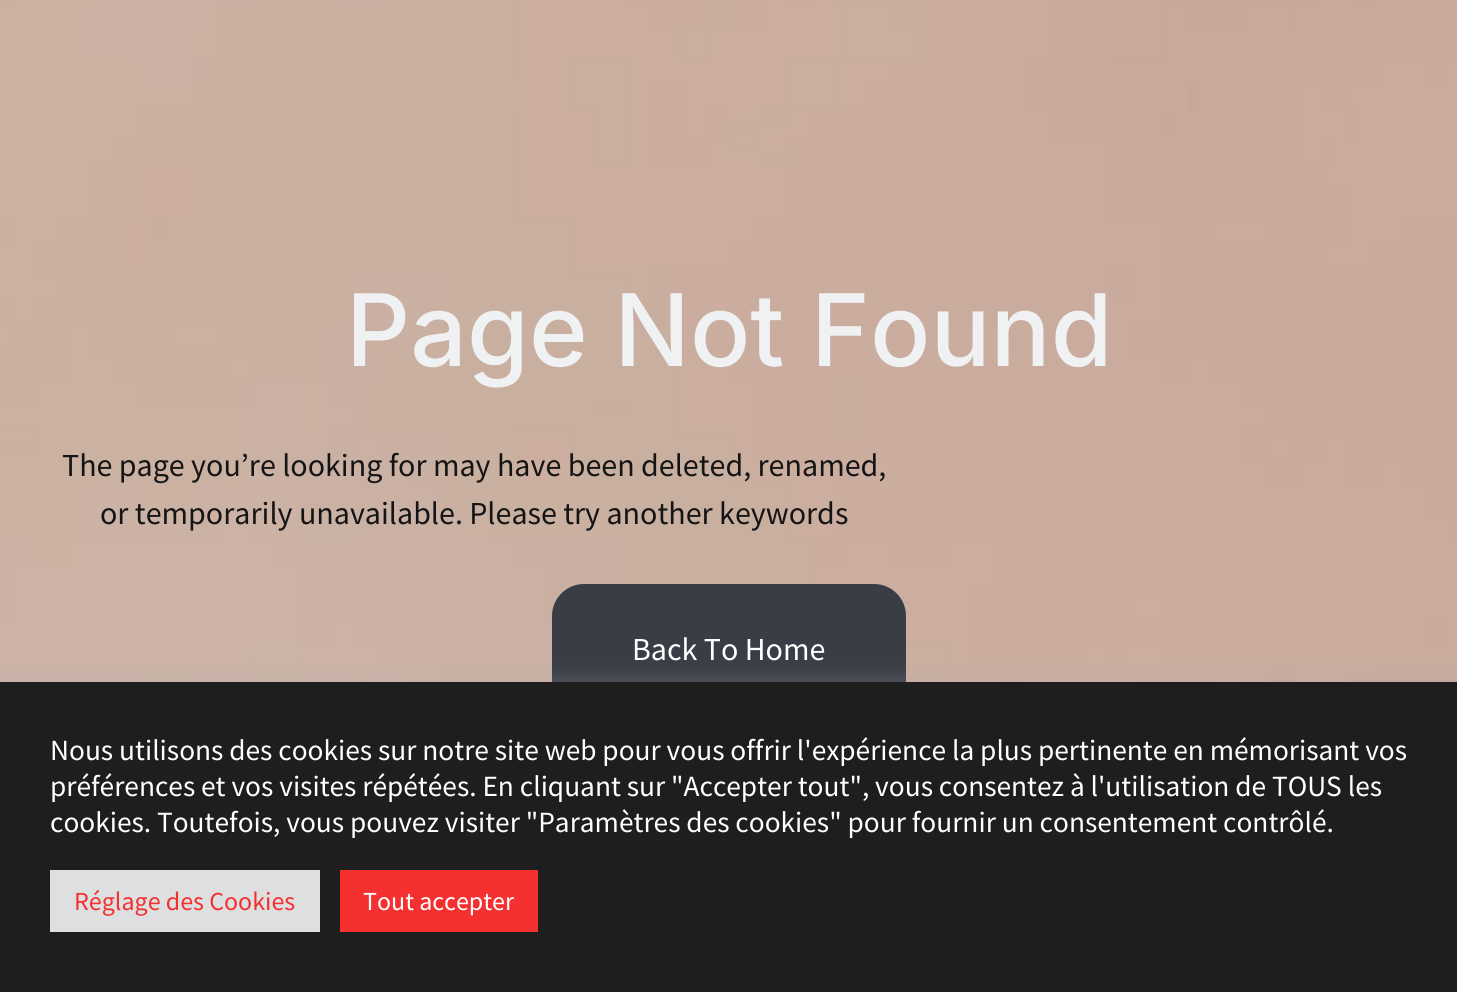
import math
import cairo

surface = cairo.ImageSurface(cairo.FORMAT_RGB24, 1457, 992)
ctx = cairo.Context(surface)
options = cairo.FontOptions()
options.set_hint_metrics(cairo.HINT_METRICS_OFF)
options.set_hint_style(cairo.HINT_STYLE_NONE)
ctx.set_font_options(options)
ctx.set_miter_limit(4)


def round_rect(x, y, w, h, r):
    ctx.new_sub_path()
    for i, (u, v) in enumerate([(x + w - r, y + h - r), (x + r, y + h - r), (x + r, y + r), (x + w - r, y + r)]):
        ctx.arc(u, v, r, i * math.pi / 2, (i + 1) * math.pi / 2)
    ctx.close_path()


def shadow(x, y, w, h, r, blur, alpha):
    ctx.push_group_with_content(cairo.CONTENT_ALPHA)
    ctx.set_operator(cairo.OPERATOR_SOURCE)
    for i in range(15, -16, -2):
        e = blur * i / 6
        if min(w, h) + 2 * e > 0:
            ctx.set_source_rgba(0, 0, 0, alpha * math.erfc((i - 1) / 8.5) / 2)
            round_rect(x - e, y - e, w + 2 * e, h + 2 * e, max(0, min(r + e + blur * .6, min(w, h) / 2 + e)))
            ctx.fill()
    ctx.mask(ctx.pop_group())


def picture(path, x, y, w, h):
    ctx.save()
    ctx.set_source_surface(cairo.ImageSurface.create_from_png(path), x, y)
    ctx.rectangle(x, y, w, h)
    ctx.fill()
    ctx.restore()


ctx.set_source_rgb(1, 1, 1)
ctx.paint()
picture("img1.png", 0, 0, 1457, 682)
ctx.select_font_face("Inter Medium")
ctx.set_font_size(100)
ctx.set_source_rgb(0.941, 0.945, 0.953)
ctx.move_to(346, 366)
ctx.show_text("Page Not Found")
ctx.select_font_face("Source Sans Pro")
ctx.set_font_size(32)
ctx.set_source_rgb(0.082, 0.082, 0.082)
ctx.move_to(62, 476)
ctx.show_text("The page you’re looking for may have been deleted, renamed,")
ctx.move_to(100, 524)
ctx.show_text("or temporarily unavailable. Please try another keywords")
ctx.set_source_rgb(0.224, 0.239, 0.275)
round_rect(552, 584, 354, 128, 32)
ctx.fill()
ctx.set_source_rgb(1, 1, 1)
ctx.move_to(632, 660)
ctx.show_text("Back To Home")
ctx.set_source_rgb(0.675, 0.671, 0.671)
shadow(0, 680, 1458, 310, 0, 10, 0.3)
ctx.set_source_rgb(0.118, 0.118, 0.118)
ctx.rectangle(0, 682, 1457, 310)
ctx.fill()
ctx.set_font_size(29.35)
ctx.set_source_rgb(1, 1, 1)
ctx.move_to(50, 760)
ctx.show_text("Nous utilisons des cookies sur notre site web pour vous offrir l'expérience la plus pertinente en mémorisant vos")
ctx.move_to(50, 796)
ctx.show_text("préférences et vos visites répétées. En cliquant sur \"Accepter tout\", vous consentez à l'utilisation de TOUS les")
ctx.move_to(50, 832)
ctx.show_text("cookies. Toutefois, vous pouvez visiter \"Paramètres des cookies\" pour fournir un consentement contrôlé.")
ctx.set_source_rgb(0.871, 0.875, 0.878)
ctx.rectangle(50, 870, 270, 62)
ctx.fill()
ctx.set_font_size(26)
ctx.set_source_rgb(0.957, 0.188, 0.188)
ctx.move_to(74, 910)
ctx.show_text("Réglage des Cookies")
ctx.rectangle(340, 870, 198, 62)
ctx.fill()
ctx.set_source_rgb(1, 1, 1)
ctx.move_to(363, 910)
ctx.show_text("Tout accepter")
surface.write_to_png("page.png")
